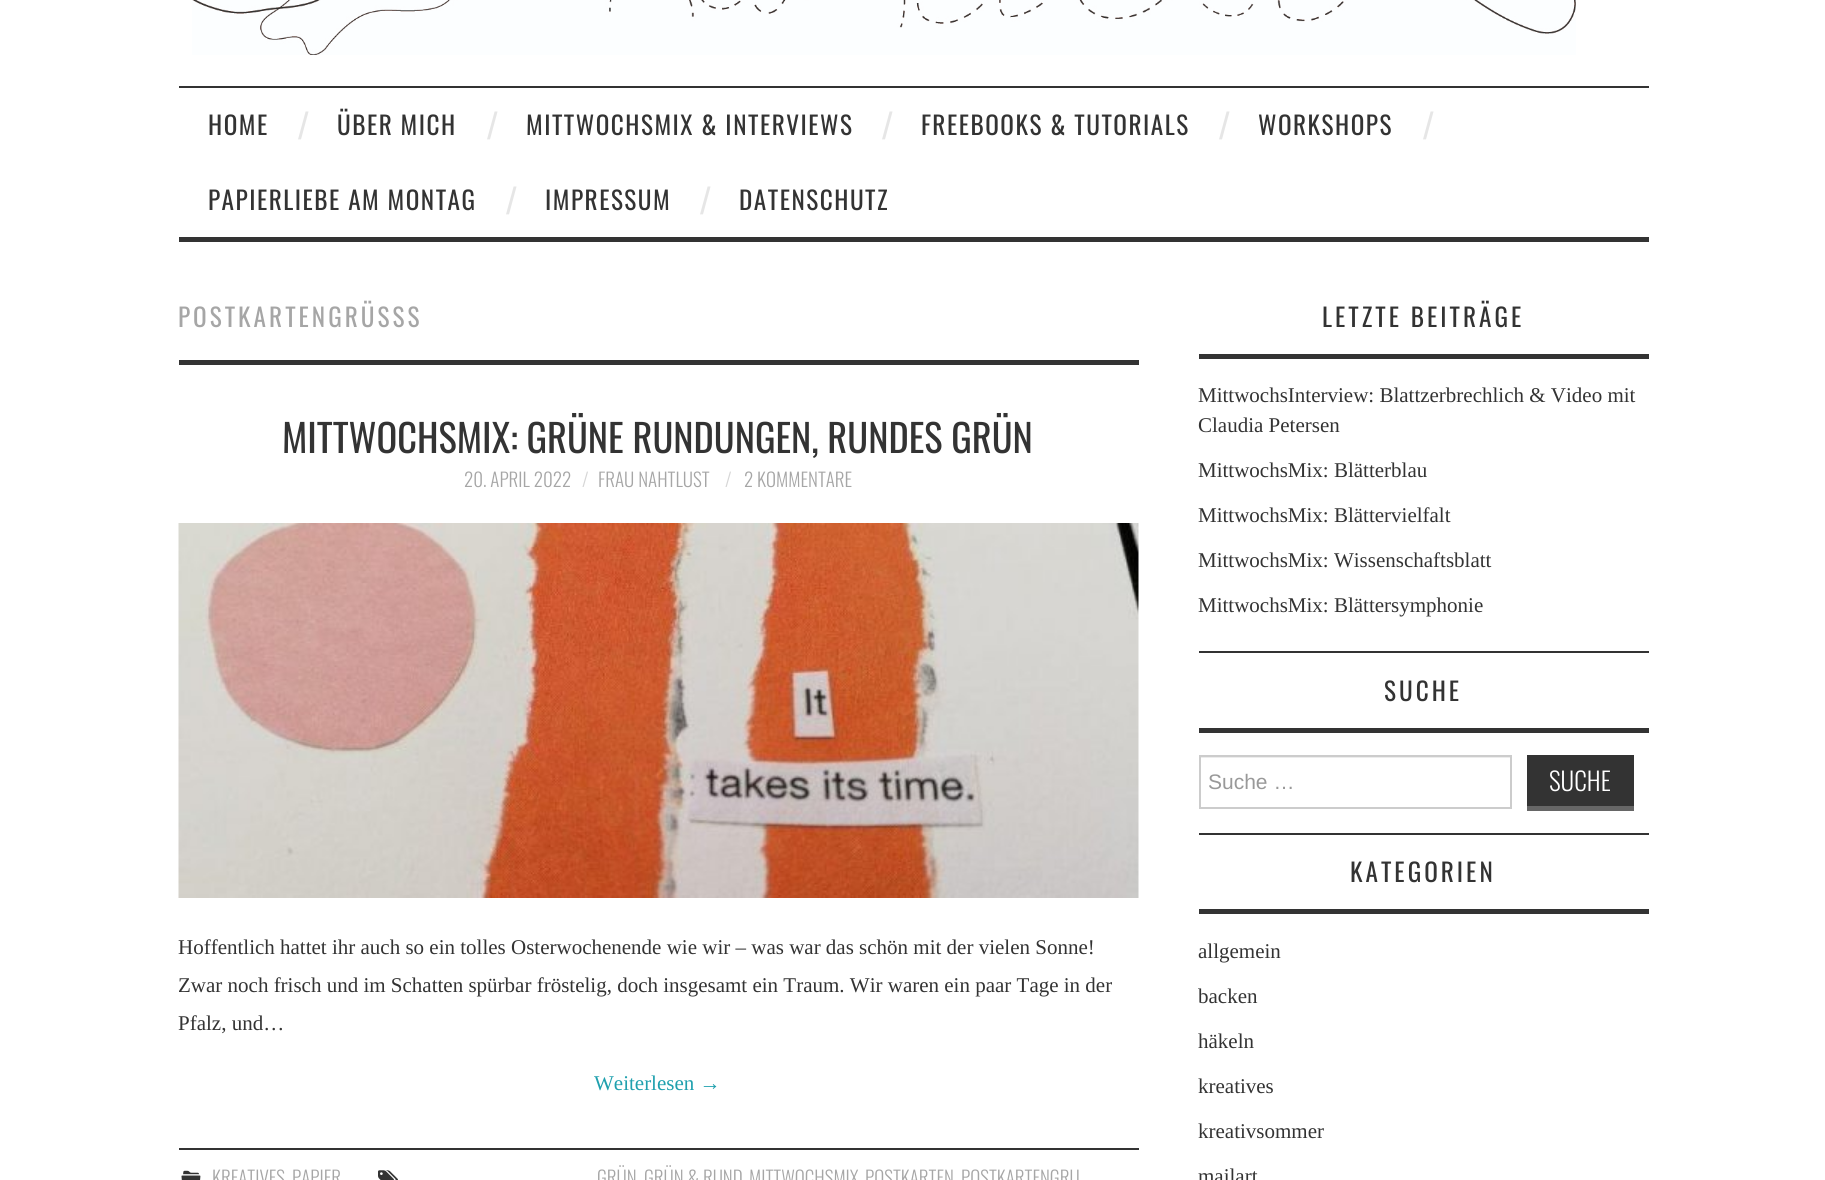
import math
import cairo

surface = cairo.ImageSurface(cairo.FORMAT_RGB24, 1825, 1180)
ctx = cairo.Context(surface)
options = cairo.FontOptions()
options.set_hint_metrics(cairo.HINT_METRICS_OFF)
options.set_hint_style(cairo.HINT_STYLE_NONE)
ctx.set_font_options(options)
ctx.set_miter_limit(4)


def spaced_text(x, y, s, letter, word):
    ctx.move_to(x, y)
    for ch in s:
        ctx.show_text(ch)
        ctx.rel_move_to(letter + word * (ch == ' '), 0)


def picture(path, x, y, w, h):
    ctx.save()
    ctx.set_source_surface(cairo.ImageSurface.create_from_png(path), x, y)
    ctx.rectangle(x, y, w, h)
    ctx.fill()
    ctx.restore()


ctx.set_source_rgb(1, 1, 1)
ctx.paint()
picture("img1.png", 192, 0, 1384, 55)
ctx.set_source_rgb(0.2, 0.2, 0.2)
ctx.rectangle(179, 86, 1470, 2)
ctx.fill()
ctx.rectangle(179, 237, 1470, 5)
ctx.fill()
ctx.select_font_face("Oswald")
ctx.set_font_size(25.25)
spaced_text(208, 135, "HOME", 1.5, 0)
ctx.select_font_face("Liberation Sans")
ctx.set_font_size(38)
ctx.set_source_rgb(0.902, 0.902, 0.902)
ctx.move_to(298, 139)
ctx.show_text("/")
ctx.select_font_face("Oswald")
ctx.set_font_size(25.25)
ctx.set_source_rgb(0.2, 0.2, 0.2)
spaced_text(337, 135, "ÜBER MICH", 1.5, 0)
ctx.select_font_face("Liberation Sans")
ctx.set_font_size(38)
ctx.set_source_rgb(0.902, 0.902, 0.902)
ctx.move_to(487, 139)
ctx.show_text("/")
ctx.select_font_face("Oswald")
ctx.set_font_size(25.25)
ctx.set_source_rgb(0.2, 0.2, 0.2)
spaced_text(526, 135, "MITTWOCHSMIX & INTERVIEWS", 1.5, 0)
ctx.select_font_face("Liberation Sans")
ctx.set_font_size(38)
ctx.set_source_rgb(0.902, 0.902, 0.902)
ctx.move_to(882, 139)
ctx.show_text("/")
ctx.select_font_face("Oswald")
ctx.set_font_size(25.25)
ctx.set_source_rgb(0.2, 0.2, 0.2)
spaced_text(921, 135, "FREEBOOKS & TUTORIALS", 1.5, 0)
ctx.select_font_face("Liberation Sans")
ctx.set_font_size(38)
ctx.set_source_rgb(0.902, 0.902, 0.902)
ctx.move_to(1219, 139)
ctx.show_text("/")
ctx.select_font_face("Oswald")
ctx.set_font_size(25.25)
ctx.set_source_rgb(0.2, 0.2, 0.2)
spaced_text(1258, 135, "WORKSHOPS", 1.5, 0)
ctx.select_font_face("Liberation Sans")
ctx.set_font_size(38)
ctx.set_source_rgb(0.902, 0.902, 0.902)
ctx.move_to(1423, 139)
ctx.show_text("/")
ctx.select_font_face("Oswald")
ctx.set_font_size(25.25)
ctx.set_source_rgb(0.2, 0.2, 0.2)
spaced_text(208, 210, "PAPIERLIEBE AM MONTAG", 1.5, 0)
ctx.select_font_face("Liberation Sans")
ctx.set_font_size(38)
ctx.set_source_rgb(0.902, 0.902, 0.902)
ctx.move_to(506, 214)
ctx.show_text("/")
ctx.select_font_face("Oswald")
ctx.set_font_size(25.25)
ctx.set_source_rgb(0.2, 0.2, 0.2)
spaced_text(545, 210, "IMPRESSUM", 1.5, 0)
ctx.select_font_face("Liberation Sans")
ctx.set_font_size(38)
ctx.set_source_rgb(0.902, 0.902, 0.902)
ctx.move_to(700, 214)
ctx.show_text("/")
ctx.select_font_face("Oswald")
ctx.set_font_size(25.25)
ctx.set_source_rgb(0.2, 0.2, 0.2)
spaced_text(739, 210, "DATENSCHUTZ", 1.5, 0)
ctx.rectangle(179, 360, 960, 5)
ctx.fill()
ctx.set_source_rgb(0.651, 0.651, 0.651)
spaced_text(178, 327, "POSTKARTENGRÜSSS", 3, 0)
ctx.set_font_size(38.4)
ctx.set_source_rgb(0.2, 0.2, 0.2)
ctx.move_to(282, 453)
ctx.show_text("MITTWOCHSMIX: GRÜNE RUNDUNGEN, RUNDES GRÜN")
ctx.select_font_face("Oswald Light")
ctx.set_font_size(19)
ctx.set_source_rgb(0.651, 0.651, 0.651)
ctx.move_to(464, 487)
ctx.show_text("20. APRIL 2022")
ctx.set_source_rgb(0.839, 0.839, 0.839)
ctx.move_to(582, 487)
ctx.show_text("/")
ctx.set_source_rgb(0.651, 0.651, 0.651)
ctx.move_to(598, 487)
ctx.show_text("FRAU NAHTLUST")
ctx.set_source_rgb(0.839, 0.839, 0.839)
ctx.move_to(725, 487)
ctx.show_text("/")
ctx.set_source_rgb(0.651, 0.651, 0.651)
ctx.move_to(744, 487)
ctx.show_text("2 KOMMENTARE")
picture("img2.png", 178, 523, 961, 375)
ctx.select_font_face("Liberation Serif")
ctx.set_font_size(21)
ctx.set_source_rgb(0.2, 0.2, 0.2)
ctx.move_to(178, 954)
ctx.show_text("Hoffentlich hattet ihr auch so ein tolles Osterwochenende wie wir – was war das schön mit der vielen Sonne!")
ctx.move_to(178, 992)
ctx.show_text("Zwar noch frisch und im Schatten spürbar fröstelig, doch insgesamt ein Traum. Wir waren ein paar Tage in der")
ctx.move_to(178, 1030)
ctx.show_text("Pfalz, und…")
ctx.set_source_rgb(0.122, 0.627, 0.682)
ctx.move_to(594, 1090)
ctx.show_text("Weiterlesen →")
ctx.set_source_rgb(0.2, 0.2, 0.2)
ctx.rectangle(179, 1148, 960, 2)
ctx.fill()
picture("img3.png", 181, 1170, 20, 10)
ctx.select_font_face("Oswald Light")
ctx.set_font_size(19)
ctx.set_source_rgb(0.651, 0.651, 0.651)
ctx.move_to(212, 1185)
ctx.show_text("KREATIVES")
ctx.move_to(292, 1185)
ctx.show_text("PAPIER")
picture("img4.png", 378, 1170, 20, 10)
ctx.move_to(597, 1185)
ctx.show_text("GRÜN")
ctx.move_to(644, 1185)
ctx.show_text("GRÜN & RUND")
ctx.move_to(749, 1185)
ctx.show_text("MITTWOCHSMIX")
ctx.move_to(865, 1185)
ctx.show_text("POSTKARTEN")
ctx.move_to(961, 1185)
ctx.show_text("POSTKARTENGRU")
ctx.set_source_rgb(0.2, 0.2, 0.2)
ctx.rectangle(1199, 651, 450, 2)
ctx.fill()
ctx.rectangle(1199, 354, 450, 5)
ctx.fill()
ctx.select_font_face("Oswald")
ctx.set_font_size(25.25)
spaced_text(1322, 327, "LETZTE BEITRÄGE", 3, 0)
ctx.select_font_face("Liberation Serif")
ctx.set_font_size(21)
ctx.move_to(1198, 402)
ctx.show_text("MittwochsInterview: Blattzerbrechlich & Video mit")
ctx.move_to(1198, 432)
ctx.show_text("Claudia Petersen")
ctx.move_to(1198, 477)
ctx.show_text("MittwochsMix: Blätterblau")
ctx.move_to(1198, 522)
ctx.show_text("MittwochsMix: Blättervielfalt")
ctx.move_to(1198, 567)
ctx.show_text("MittwochsMix: Wissenschaftsblatt")
ctx.move_to(1198, 612)
ctx.show_text("MittwochsMix: Blättersymphonie")
ctx.rectangle(1199, 833, 450, 2)
ctx.fill()
ctx.rectangle(1199, 728, 450, 5)
ctx.fill()
ctx.select_font_face("Oswald")
ctx.set_font_size(25.25)
spaced_text(1384, 701, "SUCHE", 3, 0)
ctx.set_source_rgb(0.925, 0.925, 0.925)
ctx.rectangle(1200, 757, 311, 1)
ctx.fill()
ctx.rectangle(1200, 756, 311, 52)
ctx.set_source_rgb(0.8, 0.8, 0.8)
ctx.stroke()
ctx.select_font_face("Liberation Sans")
ctx.set_font_size(21)
ctx.set_source_rgb(0.6, 0.6, 0.6)
ctx.move_to(1208, 789)
ctx.show_text("Suche …")
ctx.set_source_rgb(0.2, 0.2, 0.2)
ctx.rectangle(1527, 755, 107, 51)
ctx.fill()
ctx.set_source_rgb(0.4, 0.4, 0.4)
ctx.rectangle(1527, 806, 107, 5)
ctx.fill()
ctx.select_font_face("Oswald Light")
ctx.set_font_size(25.25)
ctx.set_source_rgb(1, 1, 1)
ctx.move_to(1549, 791)
ctx.show_text("SUCHE")
ctx.set_source_rgb(0.2, 0.2, 0.2)
ctx.rectangle(1199, 909, 450, 5)
ctx.fill()
ctx.select_font_face("Oswald")
spaced_text(1350, 882, "KATEGORIEN", 3, 0)
ctx.select_font_face("Liberation Serif")
ctx.set_font_size(21)
ctx.move_to(1198, 958)
ctx.show_text("allgemein")
ctx.move_to(1198, 1003)
ctx.show_text("backen")
ctx.move_to(1198, 1048)
ctx.show_text("häkeln")
ctx.move_to(1198, 1093)
ctx.show_text("kreatives")
ctx.move_to(1198, 1138)
ctx.show_text("kreativsommer")
ctx.move_to(1198, 1183)
ctx.show_text("mailart")
surface.write_to_png("page.png")
